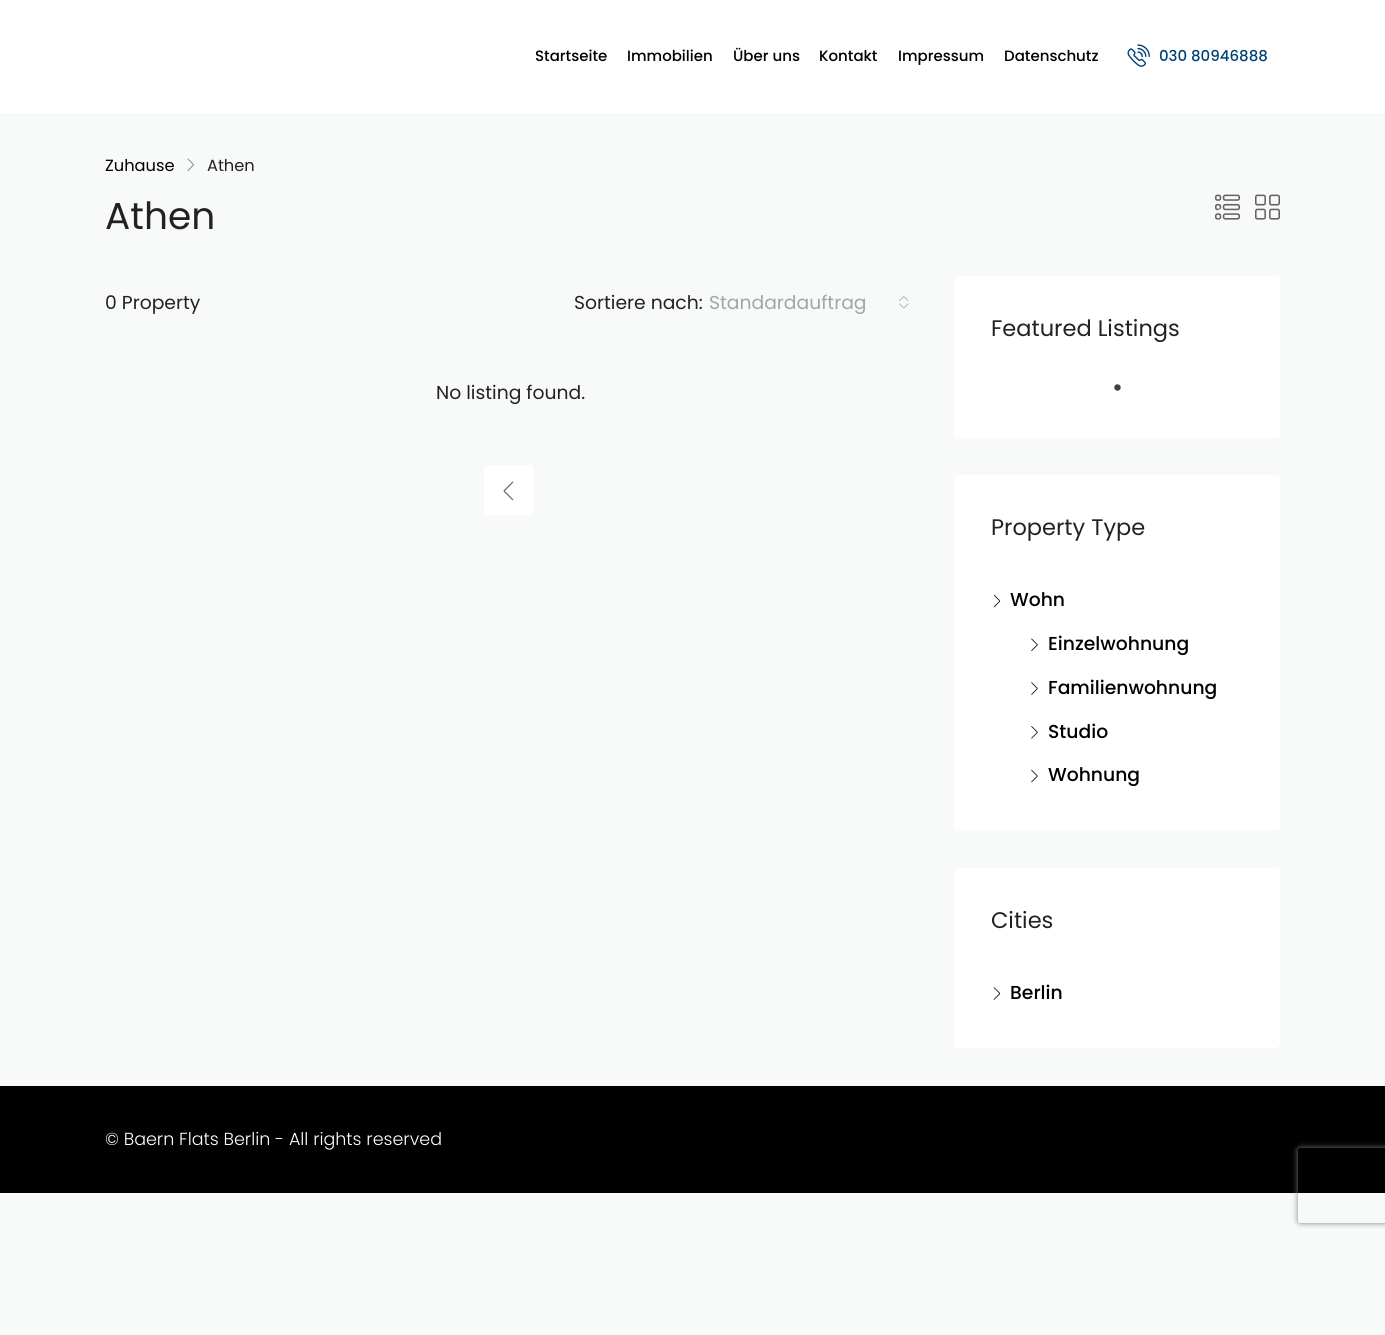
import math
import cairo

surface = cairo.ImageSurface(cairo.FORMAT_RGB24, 1385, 1335)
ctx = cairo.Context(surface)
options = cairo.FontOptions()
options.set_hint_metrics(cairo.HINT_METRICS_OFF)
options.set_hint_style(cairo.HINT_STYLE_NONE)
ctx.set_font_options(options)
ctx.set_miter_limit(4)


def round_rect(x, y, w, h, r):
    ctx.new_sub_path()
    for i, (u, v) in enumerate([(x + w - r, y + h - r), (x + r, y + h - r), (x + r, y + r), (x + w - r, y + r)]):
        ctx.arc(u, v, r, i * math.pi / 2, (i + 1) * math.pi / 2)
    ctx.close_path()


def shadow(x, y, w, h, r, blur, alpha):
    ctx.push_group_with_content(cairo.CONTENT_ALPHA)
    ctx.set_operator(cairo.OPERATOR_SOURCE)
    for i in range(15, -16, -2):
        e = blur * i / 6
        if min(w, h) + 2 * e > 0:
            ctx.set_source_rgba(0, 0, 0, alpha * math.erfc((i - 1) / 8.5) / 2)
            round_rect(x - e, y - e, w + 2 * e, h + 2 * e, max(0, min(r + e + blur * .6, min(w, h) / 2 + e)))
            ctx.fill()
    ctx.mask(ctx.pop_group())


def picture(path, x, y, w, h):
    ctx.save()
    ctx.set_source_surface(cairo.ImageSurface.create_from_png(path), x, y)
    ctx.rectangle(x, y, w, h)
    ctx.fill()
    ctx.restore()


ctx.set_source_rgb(0.969, 0.973, 0.976)
ctx.paint()
ctx.set_source_rgb(1, 1, 1)
ctx.rectangle(0, 0, 1385, 113)
ctx.fill()
ctx.select_font_face("Poppins Medium")
ctx.set_font_size(15)
ctx.set_source_rgb(0, 0, 0)
ctx.move_to(535, 61)
ctx.show_text("Startseite")
ctx.move_to(627, 61)
ctx.show_text("Immobilien")
ctx.move_to(733, 61)
ctx.show_text("Über uns")
ctx.move_to(819, 61)
ctx.show_text("Kontakt")
ctx.move_to(898, 61)
ctx.show_text("Impressum")
ctx.move_to(1004, 61)
ctx.show_text("Datenschutz")
picture("img1.png", 1127, 44, 23, 23)
ctx.set_source_rgb(0, 0.259, 0.455)
ctx.move_to(1159, 61)
ctx.show_text("030 80946888")
ctx.select_font_face("Poppins")
ctx.set_font_size(16.25)
ctx.set_source_rgb(0, 0, 0)
ctx.move_to(105, 171)
ctx.show_text("Zuhause")
picture("img2.png", 187, 158, 7, 13)
ctx.set_source_rgb(0.133, 0.133, 0.133)
ctx.move_to(207, 171)
ctx.show_text("Athen")
ctx.set_font_size(37.5)
ctx.move_to(105, 229)
ctx.show_text("Athen")
picture("img3.png", 1215, 194, 25, 26)
picture("img4.png", 1255, 194, 25, 26)
ctx.set_font_size(18.75)
ctx.move_to(105, 309)
ctx.show_text("0 Property")
ctx.move_to(574, 309)
ctx.show_text("Sortiere nach:")
ctx.set_source_rgb(0.631, 0.655, 0.659)
ctx.move_to(709, 309)
ctx.show_text("Standardauftrag")
picture("img5.png", 899, 296, 10, 13)
ctx.set_source_rgb(0.133, 0.133, 0.133)
ctx.move_to(436, 399)
ctx.show_text("No listing found.")
ctx.set_source_rgb(1, 1, 1)
round_rect(484, 465, 50, 50, 5)
ctx.fill()
picture("img6.png", 503, 481, 11, 20)
round_rect(954, 276, 326, 162, 5)
ctx.fill()
ctx.set_font_size(22.5)
ctx.set_source_rgb(0.133, 0.133, 0.133)
ctx.move_to(991, 336)
ctx.show_text("Featured Listings")
picture("img7.png", 1114, 384, 7, 7)
ctx.set_source_rgb(1, 1, 1)
round_rect(954, 475, 326, 355, 5)
ctx.fill()
ctx.set_source_rgb(0.133, 0.133, 0.133)
ctx.move_to(991, 535)
ctx.show_text("Property Type")
picture("img8.png", 993, 594, 8, 14)
ctx.select_font_face("Poppins Medium")
ctx.set_font_size(18.75)
ctx.set_source_rgb(0, 0, 0)
ctx.move_to(1010, 606)
ctx.show_text("Wohn")
picture("img9.png", 1031, 638, 7, 13)
ctx.move_to(1048, 650)
ctx.show_text("Einzelwohnung")
picture("img10.png", 1031, 682, 7, 13)
ctx.move_to(1048, 694)
ctx.show_text("Familienwohnung")
picture("img11.png", 1031, 726, 7, 13)
ctx.move_to(1048, 738)
ctx.show_text("Studio")
picture("img12.png", 1031, 769, 7, 14)
ctx.move_to(1048, 781)
ctx.show_text("Wohnung")
ctx.set_source_rgb(1, 1, 1)
round_rect(954, 868, 326, 180, 5)
ctx.fill()
ctx.select_font_face("Poppins")
ctx.set_font_size(22.5)
ctx.set_source_rgb(0.133, 0.133, 0.133)
ctx.move_to(991, 928)
ctx.show_text("Cities")
picture("img13.png", 993, 987, 8, 13)
ctx.select_font_face("Poppins Medium")
ctx.set_font_size(18.75)
ctx.set_source_rgb(0, 0, 0)
ctx.move_to(1010, 999)
ctx.show_text("Berlin")
ctx.rectangle(0, 1086, 1385, 107)
ctx.fill()
ctx.select_font_face("Poppins Light")
ctx.set_font_size(17.5)
ctx.set_source_rgb(1, 1, 1)
ctx.move_to(105, 1145)
ctx.show_text("© Baern Flats Berlin - All rights reserved")
ctx.save()
ctx.set_fill_rule(cairo.FILL_RULE_EVEN_ODD)
ctx.new_path()
ctx.move_to(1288, 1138)
ctx.line_to(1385, 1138)
ctx.line_to(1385, 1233)
ctx.line_to(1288, 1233)
ctx.close_path()
ctx.move_to(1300.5, 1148)
ctx.line_to(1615.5, 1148)
ctx.curve_to(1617, 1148, 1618, 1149, 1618, 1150.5)
ctx.line_to(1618, 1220.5)
ctx.curve_to(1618, 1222, 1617, 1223, 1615.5, 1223)
ctx.line_to(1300.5, 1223)
ctx.curve_to(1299, 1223, 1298, 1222, 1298, 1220.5)
ctx.line_to(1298, 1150.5)
ctx.curve_to(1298, 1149, 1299, 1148, 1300.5, 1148)
ctx.close_path()
ctx.clip()
ctx.set_source_rgb(0.502, 0.502, 0.502)
shadow(1298, 1148, 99, 75, 2.5, 3, 1)
ctx.restore()
surface.write_to_png("page.png")
